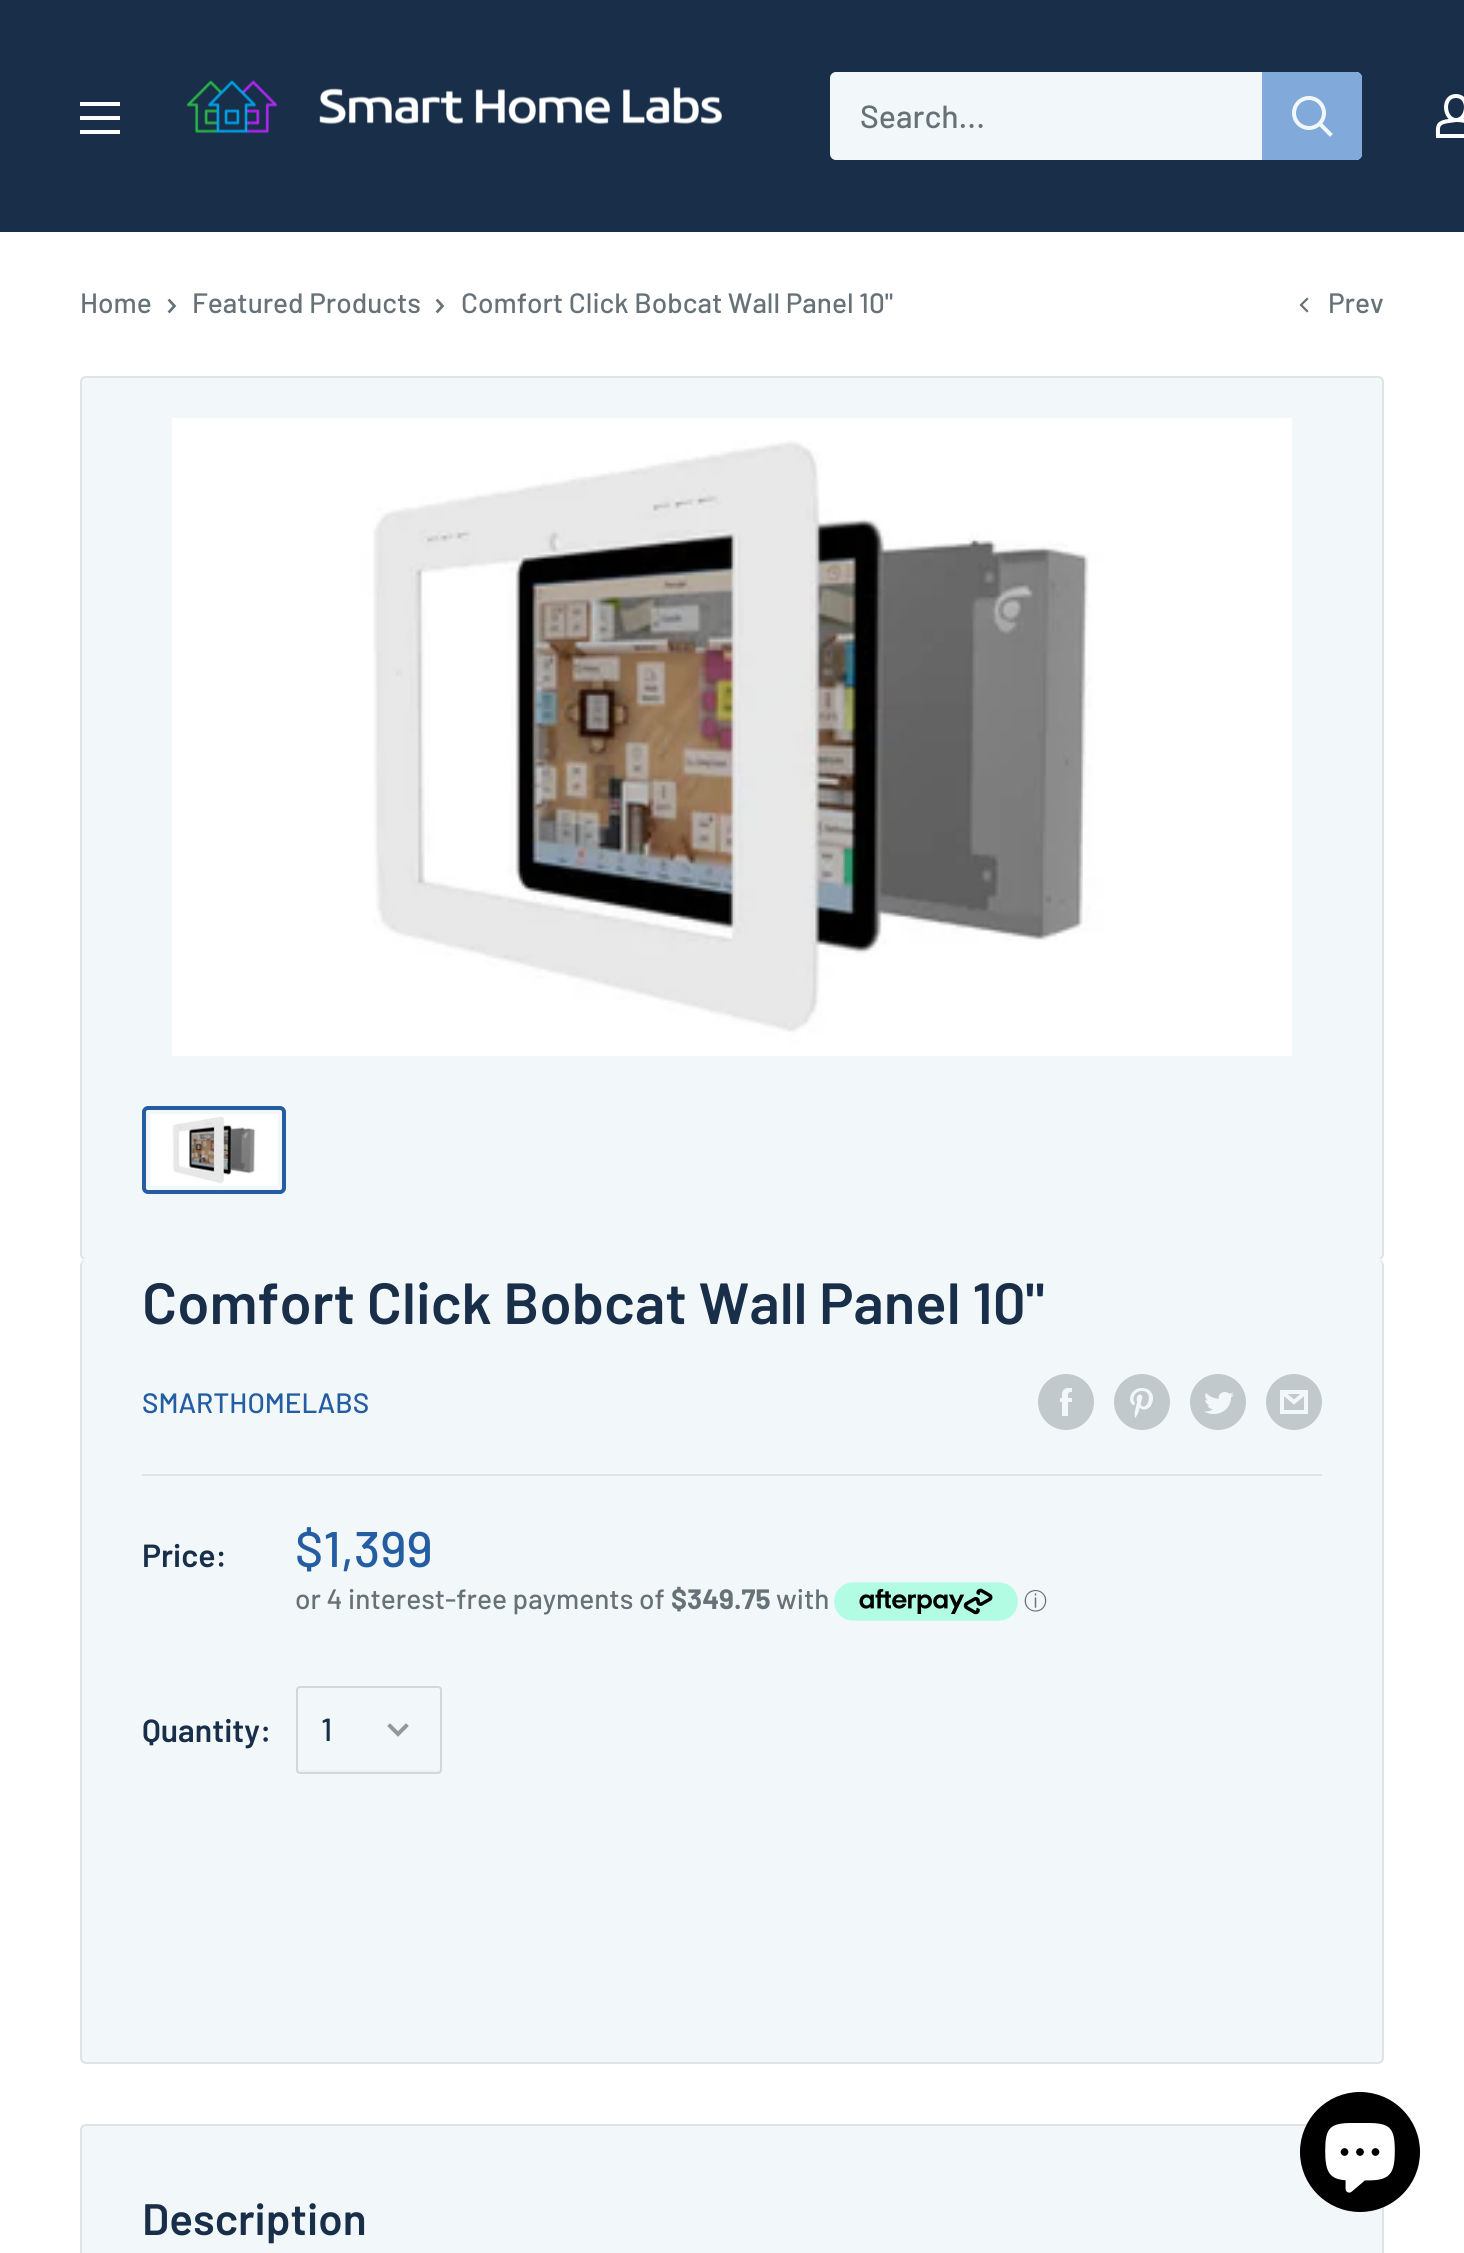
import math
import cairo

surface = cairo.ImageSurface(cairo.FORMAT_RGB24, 1464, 2253)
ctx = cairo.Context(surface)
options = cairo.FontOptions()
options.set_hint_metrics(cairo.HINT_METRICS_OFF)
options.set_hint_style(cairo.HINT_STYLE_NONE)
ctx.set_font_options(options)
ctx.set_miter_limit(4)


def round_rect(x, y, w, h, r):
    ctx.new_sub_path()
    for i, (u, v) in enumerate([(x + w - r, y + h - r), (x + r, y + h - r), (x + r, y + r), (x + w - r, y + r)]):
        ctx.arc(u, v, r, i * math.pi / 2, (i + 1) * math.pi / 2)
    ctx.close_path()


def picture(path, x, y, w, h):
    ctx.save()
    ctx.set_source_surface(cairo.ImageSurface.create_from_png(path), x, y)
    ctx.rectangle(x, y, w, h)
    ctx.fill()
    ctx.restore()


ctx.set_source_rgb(1, 1, 1)
ctx.paint()
ctx.set_source_rgb(0.094, 0.18, 0.286)
ctx.rectangle(0, 0, 1464, 232)
ctx.fill()
ctx.set_source_rgb(1, 1, 1)
ctx.set_fill_rule(cairo.FILL_RULE_EVEN_ODD)
ctx.new_path()
ctx.move_to(80, 130)
ctx.line_to(120, 130)
ctx.line_to(120, 134)
ctx.line_to(80, 134)
ctx.close_path()
ctx.move_to(80, 102)
ctx.line_to(120, 102)
ctx.line_to(120, 106)
ctx.line_to(80, 106)
ctx.close_path()
ctx.move_to(80, 116)
ctx.line_to(120, 116)
ctx.line_to(120, 120)
ctx.line_to(80, 120)
ctx.close_path()
ctx.fill()
picture("img1.png", 186, 80, 536, 54)
ctx.set_source_rgb(0.949, 0.969, 0.973)
round_rect(830, 72, 532, 88, 6)
ctx.fill()
ctx.select_font_face("Barlow Medium")
ctx.set_font_size(32)
ctx.set_source_rgb(0.4, 0.447, 0.471)
ctx.move_to(860, 128)
ctx.show_text("Search...")
ctx.set_source_rgb(0.506, 0.667, 0.859)
ctx.new_path()
ctx.move_to(1262, 72)
ctx.line_to(1356, 72)
ctx.curve_to(1359.5, 72, 1362, 74.5, 1362, 78)
ctx.line_to(1362, 154)
ctx.curve_to(1362, 157.5, 1359.5, 160, 1356, 160)
ctx.line_to(1262, 160)
ctx.close_path()
ctx.fill()
ctx.new_path()
ctx.move_to(1330, 134)
ctx.line_to(1320, 124)
ctx.set_source_rgb(0.949, 0.969, 0.973)
ctx.set_line_width(4)
ctx.set_line_cap(cairo.LINE_CAP_SQUARE)
ctx.stroke()
ctx.arc(1309, 113, 15, 0, 2 * math.pi)
ctx.set_line_cap(cairo.LINE_CAP_BUTT)
ctx.stroke()
ctx.new_path()
ctx.move_to(1456, 120)
ctx.curve_to(1460, 120, 1463.5, 120.5, 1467, 121.5)
ctx.curve_to(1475.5, 124, 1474, 128.5, 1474, 136)
ctx.line_to(1438, 136)
ctx.curve_to(1438, 128, 1436.5, 123.5, 1445.5, 121.5)
ctx.close_path()
ctx.move_to(1456, 120)
ctx.curve_to(1444, 120, 1441.5, 96, 1456, 96)
ctx.curve_to(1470.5, 96, 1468, 120, 1456, 120)
ctx.close_path()
ctx.set_source_rgb(1, 1, 1)
ctx.stroke()
ctx.set_font_size(28)
ctx.set_source_rgb(0.4, 0.447, 0.471)
ctx.move_to(80, 313)
ctx.show_text("Home")
ctx.new_path()
ctx.move_to(169.5, 300.5)
ctx.line_to(174.5, 306)
ctx.line_to(169.5, 311.5)
ctx.set_line_width(2.7)
ctx.set_line_cap(cairo.LINE_CAP_SQUARE)
ctx.stroke()
ctx.move_to(192, 313)
ctx.show_text("Featured Products")
ctx.new_path()
ctx.move_to(437.5, 300.5)
ctx.line_to(442.5, 306)
ctx.line_to(437.5, 311.5)
ctx.stroke()
ctx.move_to(461, 313)
ctx.show_text("Comfort Click Bobcat Wall Panel 10\"")
ctx.new_path()
ctx.move_to(1307, 311)
ctx.line_to(1301, 305)
ctx.line_to(1307, 299)
ctx.set_line_width(2.2)
ctx.stroke()
ctx.move_to(1328, 313)
ctx.show_text("Prev")
ctx.set_source_rgb(0.949, 0.969, 0.973)
round_rect(81, 377, 1302, 882, 5)
ctx.fill_preserve()
ctx.set_source_rgb(0.878, 0.89, 0.894)
ctx.set_line_width(2)
ctx.set_line_cap(cairo.LINE_CAP_BUTT)
ctx.stroke()
picture("img2.png", 172, 418, 1120, 638)
round_rect(144, 1108, 140, 84, 4)
ctx.set_source_rgb(0.141, 0.365, 0.635)
ctx.set_line_width(4)
ctx.stroke()
picture("img3.png", 150, 1114, 128, 72)
ctx.set_source_rgb(0.949, 0.969, 0.973)
ctx.set_fill_rule(cairo.FILL_RULE_WINDING)
ctx.new_path()
ctx.move_to(86, 1258)
ctx.curve_to(81, 1258, 80, 1262, 80, 1266)
ctx.curve_to(80, 1263, 83, 1260, 86, 1260)
ctx.line_to(1378, 1260)
ctx.curve_to(1381, 1260, 1384, 1263, 1384, 1266)
ctx.curve_to(1384, 1262, 1383, 1258, 1378, 1258)
ctx.close_path()
ctx.fill()
round_rect(80, 1260, 1304, 804, 6)
ctx.fill()
ctx.set_source_rgb(0.878, 0.89, 0.894)
ctx.set_fill_rule(cairo.FILL_RULE_EVEN_ODD)
ctx.new_path()
ctx.move_to(86, 1260)
ctx.line_to(1378, 1260)
ctx.curve_to(1381, 1260, 1384, 1263, 1384, 1266)
ctx.line_to(1384, 2058)
ctx.curve_to(1384, 2061, 1381, 2064, 1378, 2064)
ctx.line_to(86, 2064)
ctx.curve_to(83, 2064, 80, 2061, 80, 2058)
ctx.line_to(80, 1266)
ctx.curve_to(80, 1263, 83, 1260, 86, 1260)
ctx.close_path()
ctx.move_to(86, 1260)
ctx.line_to(1378, 1260)
ctx.curve_to(1380, 1260, 1382, 1263, 1382, 1266)
ctx.line_to(1382, 2058)
ctx.curve_to(1382, 2060, 1380, 2062, 1378, 2062)
ctx.line_to(86, 2062)
ctx.curve_to(84, 2062, 82, 2060, 82, 2058)
ctx.line_to(82, 1266)
ctx.curve_to(82, 1263, 84, 1260, 86, 1260)
ctx.close_path()
ctx.fill()
ctx.select_font_face("Barlow SemiBold")
ctx.set_font_size(58)
ctx.set_source_rgb(0.094, 0.18, 0.286)
ctx.move_to(142, 1324)
ctx.show_text("Comfort Click Bobcat Wall Panel 10\"")
ctx.select_font_face("Barlow Medium")
ctx.set_font_size(28)
ctx.set_source_rgb(0.141, 0.365, 0.635)
ctx.move_to(142, 1413)
ctx.show_text("SMARTHOMELABS")
picture("img4.png", 1038, 1374, 56, 56)
picture("img5.png", 1114, 1374, 56, 56)
picture("img6.png", 1190, 1374, 56, 56)
picture("img7.png", 1266, 1374, 56, 56)
ctx.set_source_rgb(0.878, 0.89, 0.894)
ctx.rectangle(142, 1474, 1180, 2)
ctx.fill()
ctx.select_font_face("Barlow SemiBold")
ctx.set_font_size(32)
ctx.set_source_rgb(0.094, 0.18, 0.286)
ctx.move_to(142, 1567)
ctx.show_text("Price:")
ctx.select_font_face("Barlow Medium")
ctx.set_font_size(50)
ctx.set_source_rgb(0.141, 0.365, 0.635)
ctx.move_to(295, 1567)
ctx.show_text("$1,399")
ctx.set_font_size(28)
ctx.set_source_rgb(0.4, 0.447, 0.471)
ctx.move_to(295, 1609)
ctx.show_text("or 4 interest-free payments of")
ctx.select_font_face("Barlow", cairo.FONT_SLANT_NORMAL, cairo.FONT_WEIGHT_BOLD)
ctx.move_to(671, 1609)
ctx.show_text("$349.75")
ctx.select_font_face("Barlow Medium")
ctx.move_to(776, 1609)
ctx.show_text("with")
picture("img8.png", 834, 1582, 184, 39)
ctx.select_font_face("WenQuanYi Zen Hei Medium")
ctx.set_font_size(23)
ctx.move_to(1024, 1609)
ctx.show_text("ⓘ")
ctx.select_font_face("Barlow SemiBold")
ctx.set_font_size(32)
ctx.set_source_rgb(0.094, 0.18, 0.286)
ctx.move_to(142, 1742)
ctx.show_text("Quantity:")
ctx.set_source_rgb(0.929, 0.945, 0.949)
ctx.set_fill_rule(cairo.FILL_RULE_WINDING)
ctx.new_path()
ctx.move_to(298, 1768)
ctx.curve_to(298, 1770, 298, 1772, 300, 1772)
ctx.line_to(439, 1772)
ctx.curve_to(440, 1771, 440, 1769, 440, 1768)
ctx.curve_to(440, 1769, 439, 1770, 438, 1770)
ctx.line_to(300, 1770)
ctx.curve_to(299, 1770, 298, 1769, 298, 1768)
ctx.close_path()
ctx.fill()
round_rect(297, 1687, 144, 86, 3)
ctx.set_source_rgb(0.824, 0.843, 0.847)
ctx.set_line_width(2)
ctx.stroke()
ctx.select_font_face("Barlow Medium")
ctx.set_source_rgb(0.094, 0.18, 0.286)
ctx.move_to(321, 1741)
ctx.show_text("1")
ctx.new_path()
ctx.move_to(406, 1726)
ctx.line_to(398, 1734)
ctx.line_to(390, 1726)
ctx.set_source_rgb(0.565, 0.604, 0.62)
ctx.set_line_width(4)
ctx.set_line_cap(cairo.LINE_CAP_SQUARE)
ctx.stroke()
ctx.set_source_rgb(0.949, 0.969, 0.973)
round_rect(81, 2125, 1302, 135, 5)
ctx.fill_preserve()
ctx.set_source_rgb(0.878, 0.89, 0.894)
ctx.set_line_width(2)
ctx.set_line_cap(cairo.LINE_CAP_BUTT)
ctx.stroke()
ctx.select_font_face("Barlow SemiBold")
ctx.set_font_size(44)
ctx.set_source_rgb(0.094, 0.18, 0.286)
ctx.move_to(142, 2235)
ctx.show_text("Description")
ctx.set_source_rgb(0, 0, 0)
ctx.new_path()
ctx.arc(1360, 2152, 60, 0, 2 * math.pi)
ctx.fill()
picture("img9.png", 1325, 2123, 70, 70)
surface.write_to_png("page.png")
